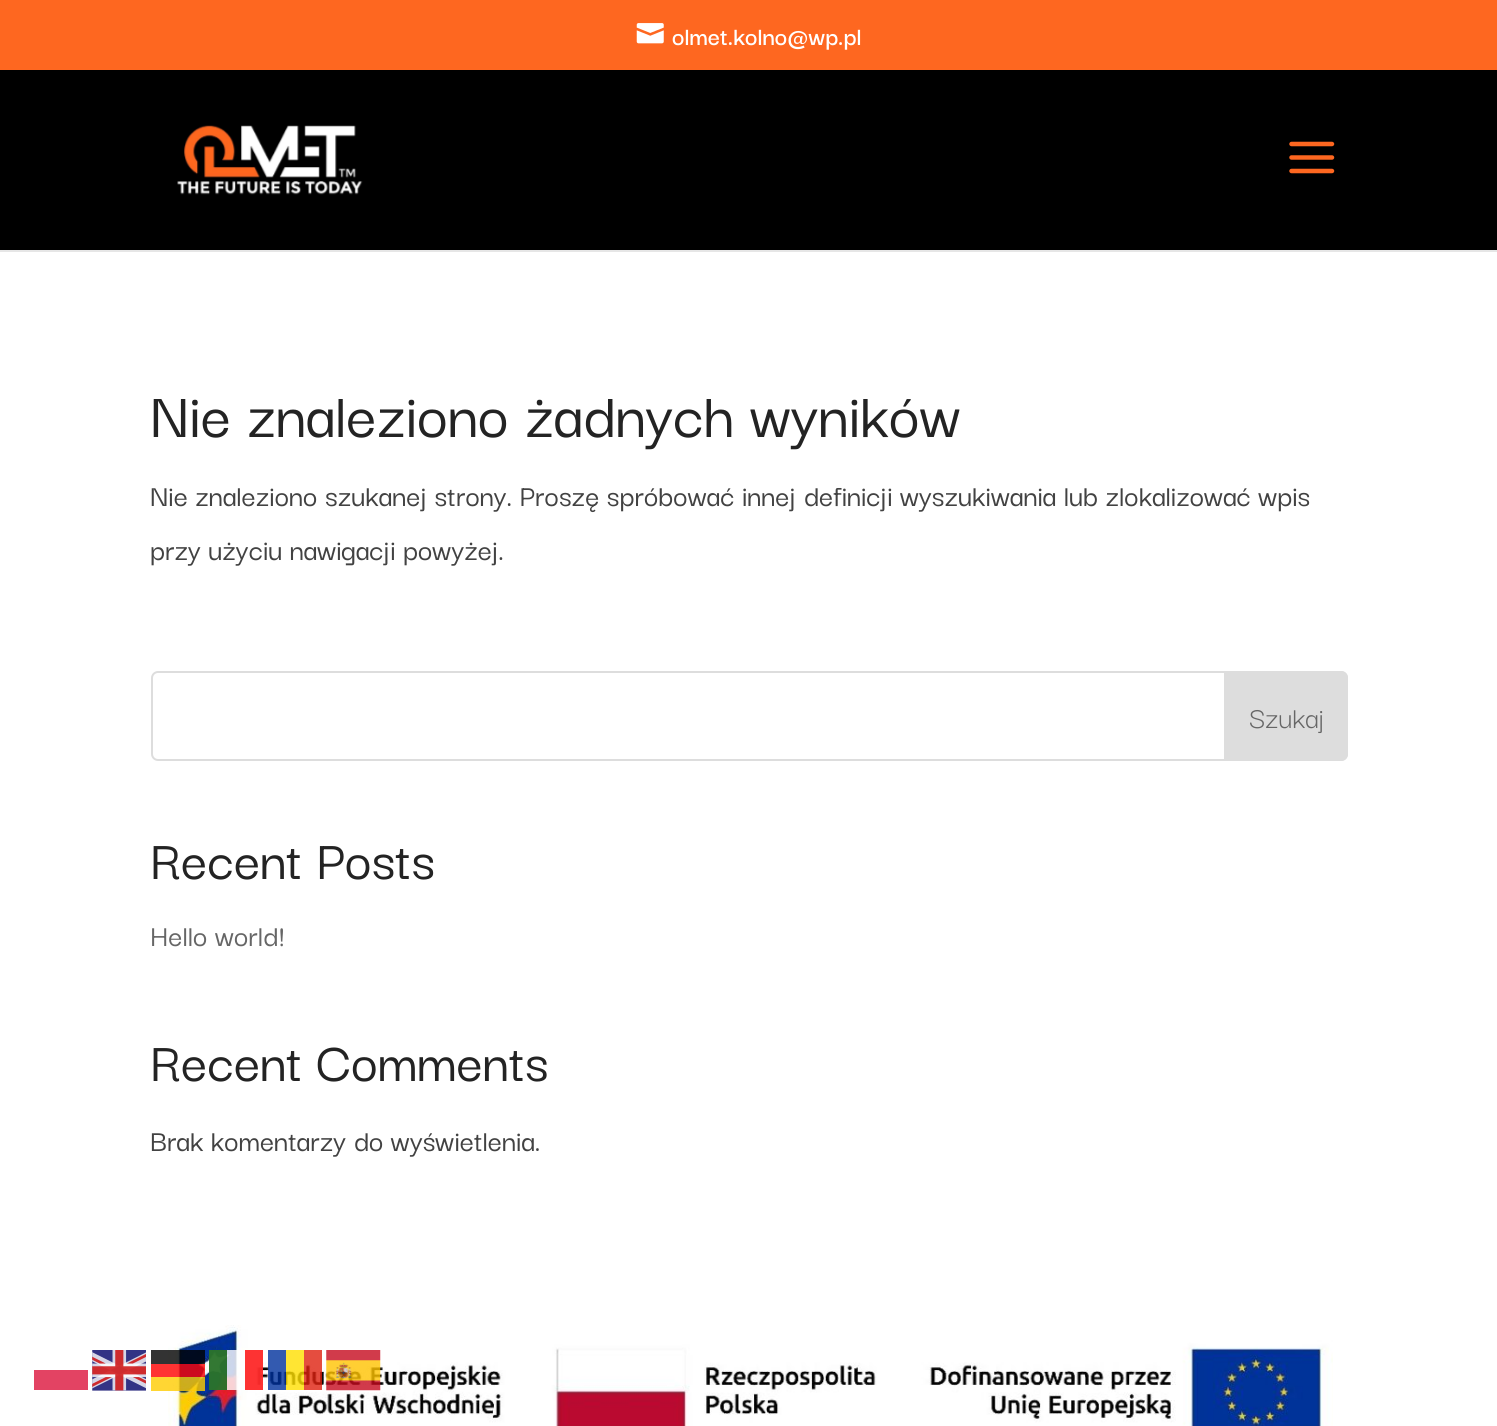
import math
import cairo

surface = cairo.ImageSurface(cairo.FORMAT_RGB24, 1497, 1426)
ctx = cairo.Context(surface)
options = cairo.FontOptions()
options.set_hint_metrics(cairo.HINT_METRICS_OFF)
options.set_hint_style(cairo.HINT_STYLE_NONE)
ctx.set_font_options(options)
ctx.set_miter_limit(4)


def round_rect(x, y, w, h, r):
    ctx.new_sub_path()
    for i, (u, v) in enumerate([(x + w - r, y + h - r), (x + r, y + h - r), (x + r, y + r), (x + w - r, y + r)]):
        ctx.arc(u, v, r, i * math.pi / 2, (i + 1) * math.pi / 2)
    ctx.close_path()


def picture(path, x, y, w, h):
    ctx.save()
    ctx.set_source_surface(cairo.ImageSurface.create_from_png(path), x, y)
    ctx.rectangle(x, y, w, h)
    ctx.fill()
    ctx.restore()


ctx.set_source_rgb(1, 1, 1)
ctx.paint()
ctx.set_source_rgb(0.996, 0.404, 0.125)
ctx.rectangle(0, 0, 1497, 70)
ctx.fill()
picture("img1.png", 636, 23, 28, 21)
ctx.select_font_face("Darker Grotesque SemiBold")
ctx.set_font_size(27)
ctx.set_source_rgb(1, 1, 1)
ctx.move_to(672, 45)
ctx.show_text("olmet.kolno@wp.pl")
ctx.set_source_rgb(0.902, 0.902, 0.902)
ctx.new_path()
ctx.move_to(0, 250)
ctx.line_to(0, 252)
ctx.line_to(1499, 252)
ctx.line_to(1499, 72)
ctx.line_to(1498, 72)
ctx.line_to(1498, 250)
ctx.close_path()
ctx.fill()
ctx.set_source_rgb(0, 0, 0)
ctx.rectangle(0, 70, 1497, 180)
ctx.fill()
picture("img2.png", 177, 125, 186, 70)
picture("img3.png", 1289, 141, 46, 33)
ctx.select_font_face("Darker Grotesque Light")
ctx.set_font_size(67.5)
ctx.set_source_rgb(0.137, 0.137, 0.137)
ctx.move_to(150, 437)
ctx.show_text("Nie znaleziono żadnych wyników")
ctx.set_font_size(31.5)
ctx.set_source_rgb(0.259, 0.259, 0.259)
ctx.move_to(150, 506)
ctx.show_text("Nie znaleziono szukanej strony. Proszę spróbować innej definicji wyszukiwania lub zlokalizować wpis")
ctx.move_to(150, 560)
ctx.show_text("przy użyciu nawigacji powyżej.")
round_rect(152, 672, 1195, 88, 6)
ctx.set_source_rgb(0.867, 0.867, 0.867)
ctx.stroke()
ctx.new_path()
ctx.move_to(1225, 672)
ctx.line_to(1341, 672)
ctx.curve_to(1344.5, 672, 1347, 674.5, 1347, 678)
ctx.line_to(1347, 754)
ctx.curve_to(1347, 757.5, 1344.5, 760, 1341, 760)
ctx.line_to(1225, 760)
ctx.close_path()
ctx.fill_preserve()
ctx.stroke()
ctx.select_font_face("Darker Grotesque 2 Light")
ctx.set_source_rgb(0.4, 0.4, 0.4)
ctx.move_to(1249, 728)
ctx.show_text("Szukaj")
ctx.select_font_face("Darker Grotesque Light")
ctx.set_font_size(58.5)
ctx.set_source_rgb(0.137, 0.137, 0.137)
ctx.move_to(150, 879)
ctx.show_text("Recent Posts")
ctx.set_font_size(31.5)
ctx.set_source_rgb(0.4, 0.4, 0.4)
ctx.move_to(150, 946)
ctx.show_text("Hello world!")
ctx.set_font_size(58.5)
ctx.set_source_rgb(0.137, 0.137, 0.137)
ctx.move_to(150, 1081)
ctx.show_text("Recent Comments")
ctx.set_font_size(31.5)
ctx.set_source_rgb(0.259, 0.259, 0.259)
ctx.move_to(150, 1151)
ctx.show_text("Brak komentarzy do wyświetlenia.")
picture("img4.png", 168, 1325, 1165, 101)
picture("img5.png", 92, 1350, 54, 41)
ctx.set_source_rgba(0, 0, 0, 0.8)
ctx.rectangle(151, 1350, 54, 14)
ctx.fill()
ctx.set_source_rgba(1, 1, 1, 0.8)
ctx.rectangle(209, 1350, 54, 40)
ctx.fill()
ctx.set_source_rgb(0.89, 0.263, 0.388)
ctx.rectangle(34, 1370, 54, 20)
ctx.fill()
ctx.set_source_rgba(1, 0, 0, 0.8)
ctx.rectangle(151, 1364, 54, 13)
ctx.fill()
ctx.set_source_rgba(0, 0.341, 0, 0.8)
ctx.rectangle(209, 1350, 18, 40)
ctx.fill()
ctx.set_source_rgba(0.988, 0, 0, 0.8)
ctx.rectangle(245, 1350, 18, 40)
ctx.fill()
ctx.set_source_rgba(0, 0.192, 0.612, 0.8)
ctx.rectangle(268, 1350, 18, 40)
ctx.fill()
ctx.set_source_rgba(1, 0.871, 0, 0.8)
ctx.rectangle(286, 1350, 18, 40)
ctx.fill()
ctx.set_source_rgba(0.871, 0.129, 0.063, 0.8)
ctx.rectangle(304, 1350, 18, 40)
ctx.fill()
picture("img6.png", 326, 1350, 55, 41)
ctx.set_source_rgba(1, 0.8, 0, 0.8)
ctx.rectangle(151, 1377, 54, 14)
ctx.fill()
surface.write_to_png("page.png")
